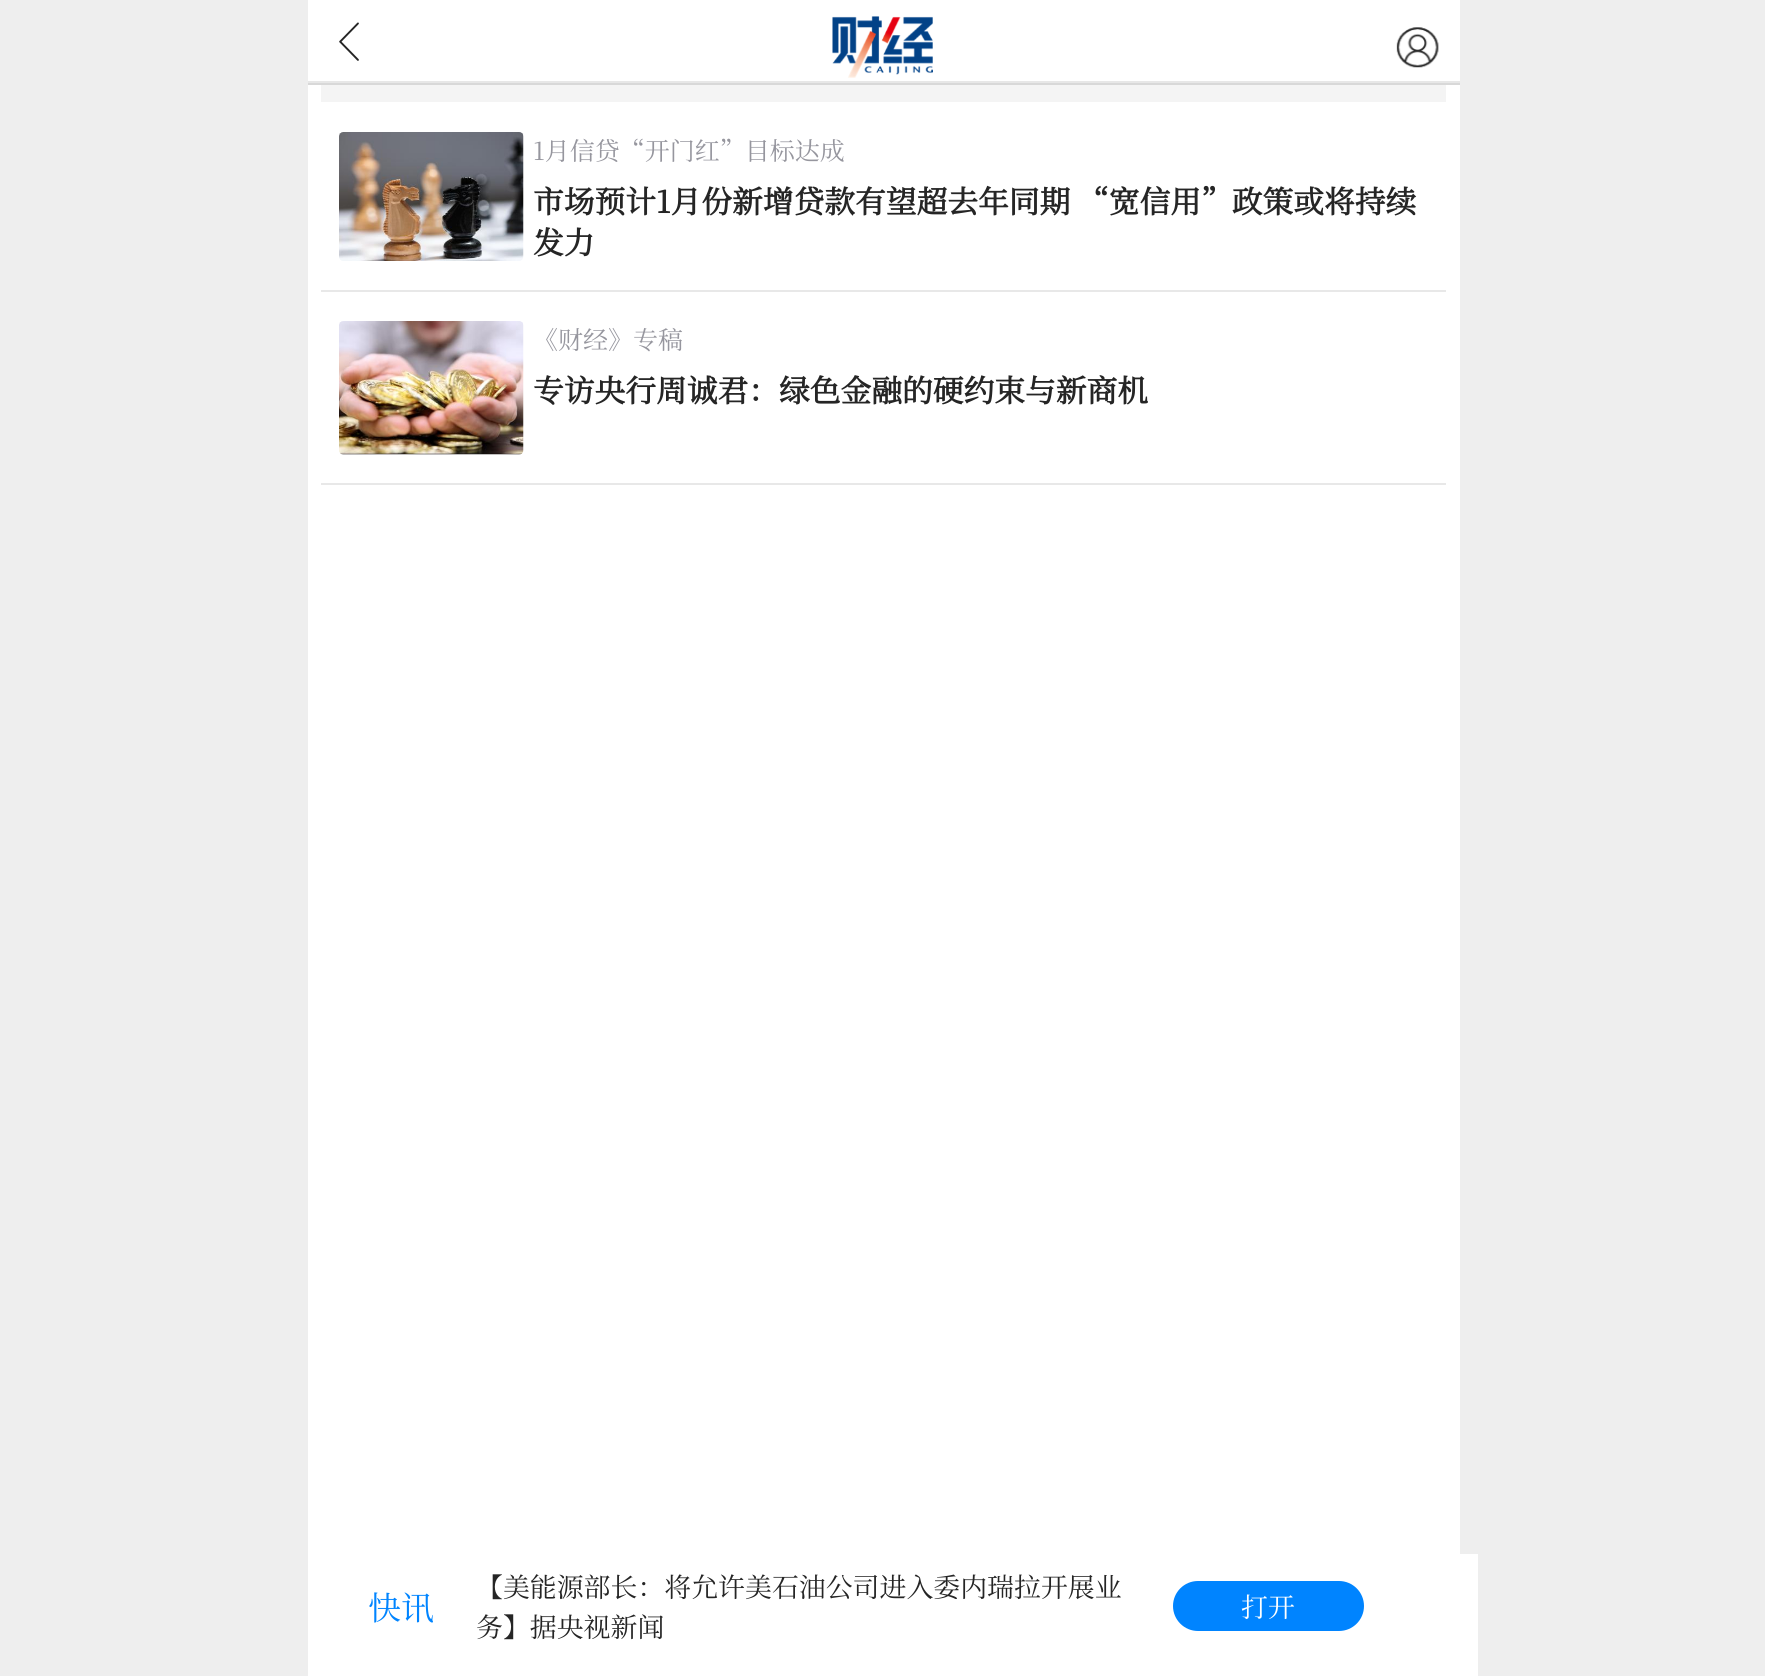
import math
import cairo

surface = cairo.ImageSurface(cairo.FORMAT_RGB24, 1765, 1676)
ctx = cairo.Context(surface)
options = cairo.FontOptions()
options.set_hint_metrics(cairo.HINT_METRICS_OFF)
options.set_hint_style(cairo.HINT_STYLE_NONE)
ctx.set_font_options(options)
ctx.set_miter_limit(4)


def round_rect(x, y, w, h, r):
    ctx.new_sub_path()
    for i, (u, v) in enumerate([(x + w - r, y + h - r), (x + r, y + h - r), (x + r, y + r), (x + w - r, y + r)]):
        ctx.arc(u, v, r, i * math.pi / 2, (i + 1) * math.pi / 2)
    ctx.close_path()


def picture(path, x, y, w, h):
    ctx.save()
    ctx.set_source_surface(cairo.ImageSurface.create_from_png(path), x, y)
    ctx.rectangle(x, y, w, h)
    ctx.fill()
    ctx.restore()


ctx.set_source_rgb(0.933, 0.933, 0.933)
ctx.paint()
ctx.set_source_rgb(1, 1, 1)
ctx.rectangle(308, 85, 1152, 1591)
ctx.fill()
ctx.rectangle(308, 0, 1152, 81)
ctx.fill()
ctx.set_source_rgb(0.847, 0.847, 0.847)
ctx.rectangle(308, 83, 1152, 2)
ctx.fill()
picture("img1.png", 339, 22, 20, 39)
picture("img2.png", 832, 16, 101, 62)
picture("img3.png", 1396, 27, 43, 41)
ctx.set_source_rgb(0.906, 0.906, 0.906)
ctx.rectangle(308, 81, 1152, 2)
ctx.fill()
ctx.set_source_rgb(0.957, 0.957, 0.957)
ctx.rectangle(321, 85, 1125, 17)
ctx.fill()
ctx.set_source_rgb(0.91, 0.91, 0.91)
ctx.rectangle(321, 290, 1125, 2)
ctx.fill()
picture("img4.png", 339, 132, 185, 129)
ctx.select_font_face("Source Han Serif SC")
ctx.set_font_size(25)
ctx.set_source_rgb(0.588, 0.588, 0.62)
ctx.move_to(533, 160)
ctx.show_text("1月信贷“开门红”目标达成")
ctx.select_font_face("Source Han Serif SC", cairo.FONT_SLANT_NORMAL, cairo.FONT_WEIGHT_BOLD)
ctx.set_font_size(30.75)
ctx.set_source_rgb(0.145, 0.145, 0.145)
ctx.move_to(533, 213)
ctx.show_text("市场预计1月份新增贷款有望超去年同期 “宽信用”政策或将持续")
ctx.move_to(533, 254)
ctx.show_text("发力")
ctx.set_source_rgb(0.91, 0.91, 0.91)
ctx.rectangle(321, 483, 1125, 2)
ctx.fill()
picture("img5.png", 339, 321, 185, 134)
ctx.select_font_face("Source Han Serif SC")
ctx.set_font_size(25)
ctx.set_source_rgb(0.588, 0.588, 0.62)
ctx.move_to(533, 349)
ctx.show_text("《财经》专稿")
ctx.select_font_face("Source Han Serif SC", cairo.FONT_SLANT_NORMAL, cairo.FONT_WEIGHT_BOLD)
ctx.set_font_size(30.75)
ctx.set_source_rgb(0.145, 0.145, 0.145)
ctx.move_to(533, 402)
ctx.show_text("专访央行周诚君：绿色金融的硬约束与新商机")
ctx.set_source_rgb(1, 1, 1)
ctx.rectangle(1460, 1554, 18, 122)
ctx.fill()
ctx.select_font_face("Source Han Serif SC")
ctx.set_font_size(33)
ctx.set_source_rgb(0, 0.518, 1)
ctx.move_to(368, 1620)
ctx.show_text("快讯")
ctx.set_font_size(26.9)
ctx.set_source_rgb(0.145, 0.145, 0.145)
ctx.move_to(476, 1597)
ctx.show_text("【美能源部长：将允许美石油公司进入委内瑞拉开展业")
ctx.move_to(476, 1637)
ctx.show_text("务】据央视新闻")
ctx.set_source_rgb(0, 0.518, 1)
round_rect(1173, 1581, 191, 50, 25)
ctx.fill()
ctx.set_source_rgb(1, 1, 1)
ctx.move_to(1241, 1617)
ctx.show_text("打开")
surface.write_to_png("page.png")
